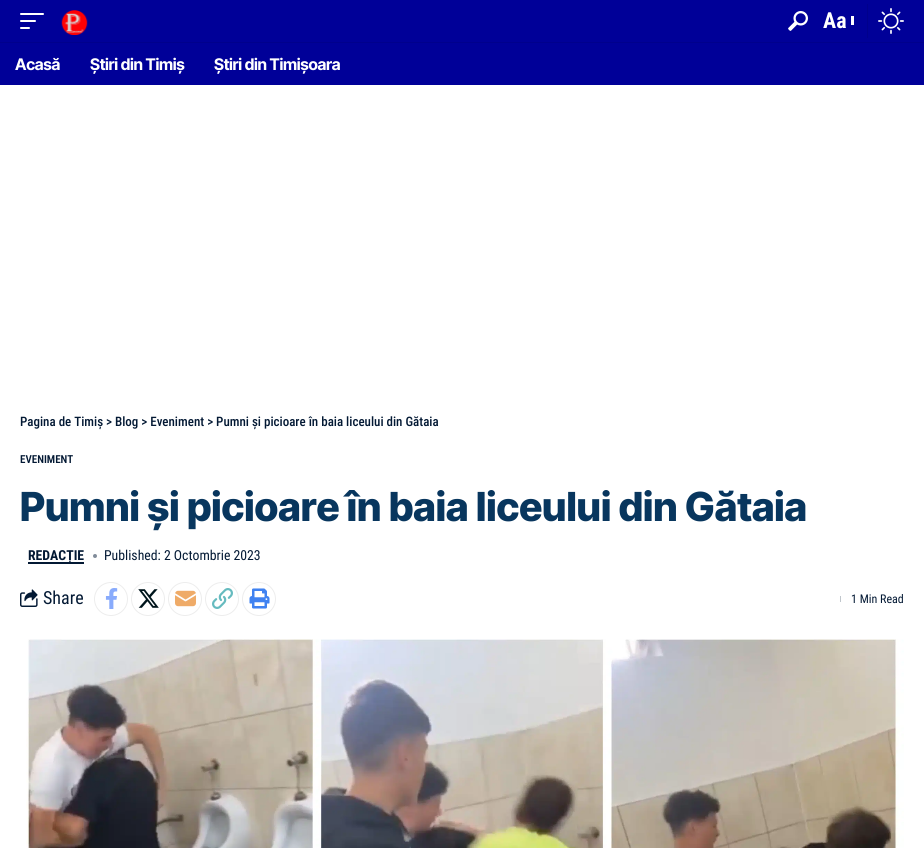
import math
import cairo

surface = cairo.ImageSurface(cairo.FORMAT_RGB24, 924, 848)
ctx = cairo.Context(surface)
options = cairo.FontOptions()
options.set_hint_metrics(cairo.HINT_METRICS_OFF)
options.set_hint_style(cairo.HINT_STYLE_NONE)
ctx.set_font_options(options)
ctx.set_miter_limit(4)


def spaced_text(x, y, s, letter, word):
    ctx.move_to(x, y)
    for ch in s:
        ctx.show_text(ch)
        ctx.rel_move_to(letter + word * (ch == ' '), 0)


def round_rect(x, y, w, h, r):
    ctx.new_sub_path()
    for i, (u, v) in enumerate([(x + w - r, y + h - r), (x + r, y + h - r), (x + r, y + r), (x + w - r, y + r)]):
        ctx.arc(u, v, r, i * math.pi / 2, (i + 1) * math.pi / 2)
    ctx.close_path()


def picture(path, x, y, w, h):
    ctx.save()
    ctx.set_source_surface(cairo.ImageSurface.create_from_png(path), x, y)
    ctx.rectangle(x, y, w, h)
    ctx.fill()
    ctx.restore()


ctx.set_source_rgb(1, 1, 1)
ctx.paint()
ctx.set_source_rgb(0, 0, 0.596)
ctx.rectangle(0, 0, 924, 85)
ctx.fill()
ctx.set_source_rgb(1, 1, 1)
round_rect(20, 13, 24, 2, 1)
ctx.fill()
round_rect(20, 20, 16, 2, 1)
ctx.fill()
round_rect(20, 27, 10, 2, 1)
ctx.fill()
picture("img1.png", 61, 10, 27, 25)
picture("img2.png", 788, 11, 20, 20)
ctx.select_font_face("Roboto Condensed", cairo.FONT_SLANT_NORMAL, cairo.FONT_WEIGHT_BOLD)
ctx.set_font_size(22)
ctx.move_to(823, 28)
ctx.show_text("Aa")
ctx.rectangle(851, 16, 3, 9)
ctx.fill()
ctx.set_source_rgb(0, 0, 0.549)
ctx.rectangle(867, 4, 1, 34)
ctx.fill()
picture("img3.png", 878, 8, 26, 26)
ctx.rectangle(0, 42, 924, 1)
ctx.fill()
ctx.select_font_face("Inter Tight", cairo.FONT_SLANT_NORMAL, cairo.FONT_WEIGHT_BOLD)
ctx.set_font_size(16)
ctx.set_source_rgb(1, 1, 1)
spaced_text(15, 70, "Acasă", -0.3, 0)
spaced_text(90, 70, "Știri din Timiș", -0.3, 0)
spaced_text(214, 70, "Știri din Timișoara", -0.3, 0)
ctx.select_font_face("Roboto Condensed Medium")
ctx.set_font_size(13)
ctx.set_source_rgb(0.012, 0.098, 0.204)
ctx.move_to(20, 426)
ctx.show_text("Pagina de Timiș > Blog > Eveniment > Pumni și picioare în baia liceului din Gătaia")
ctx.select_font_face("Roboto Condensed SemiBold")
ctx.set_font_size(11)
ctx.move_to(20, 463)
ctx.show_text("EVENIMENT")
ctx.select_font_face("Inter Tight ExtraBold")
ctx.set_font_size(40)
ctx.set_source_rgb(0.035, 0.212, 0.369)
ctx.move_to(20, 521)
ctx.show_text("Pumni și picioare în baia liceului din Gătaia")
ctx.set_source_rgb(0.012, 0.098, 0.204)
ctx.rectangle(28, 562, 56, 2)
ctx.fill()
ctx.select_font_face("Roboto Condensed", cairo.FONT_SLANT_NORMAL, cairo.FONT_WEIGHT_BOLD)
ctx.set_font_size(13.75)
ctx.move_to(28, 560)
ctx.show_text("REDACȚIE")
ctx.set_source_rgb(0.506, 0.549, 0.604)
ctx.new_path()
ctx.arc(95, 556, 2, 0, 2 * math.pi)
ctx.fill()
ctx.select_font_face("Roboto Condensed")
ctx.set_source_rgb(0.012, 0.098, 0.204)
ctx.move_to(104, 560)
ctx.show_text("Published: 2 Octombrie 2023")
picture("img4.png", 20, 589, 18, 18)
ctx.set_font_size(18)
ctx.move_to(43, 604)
ctx.show_text("Share")
ctx.new_path()
ctx.arc(111, 599, 16.5, 0, 2 * math.pi)
ctx.set_source_rgb(0.929, 0.929, 0.929)
ctx.set_line_width(1)
ctx.stroke()
picture("img5.png", 105, 588, 13, 21)
ctx.arc(148, 599, 16.5, 0, 2 * math.pi)
ctx.stroke()
picture("img6.png", 138, 589, 21, 19)
ctx.arc(185, 599, 16.5, 0, 2 * math.pi)
ctx.stroke()
picture("img7.png", 175, 590, 21, 17)
ctx.arc(222, 599, 16.5, 0, 2 * math.pi)
ctx.stroke()
picture("img8.png", 212, 588, 21, 21)
ctx.arc(259, 599, 16.5, 0, 2 * math.pi)
ctx.stroke()
picture("img9.png", 249, 588, 21, 21)
ctx.set_source_rgb(0.753, 0.776, 0.8)
ctx.rectangle(840, 596, 1, 6)
ctx.fill()
ctx.set_font_size(12)
ctx.set_source_rgb(0.012, 0.098, 0.204)
ctx.move_to(851, 603)
ctx.show_text("1 Min Read")
picture("img10.png", 26, 639, 878, 209)
surface.write_to_png("page.png")
